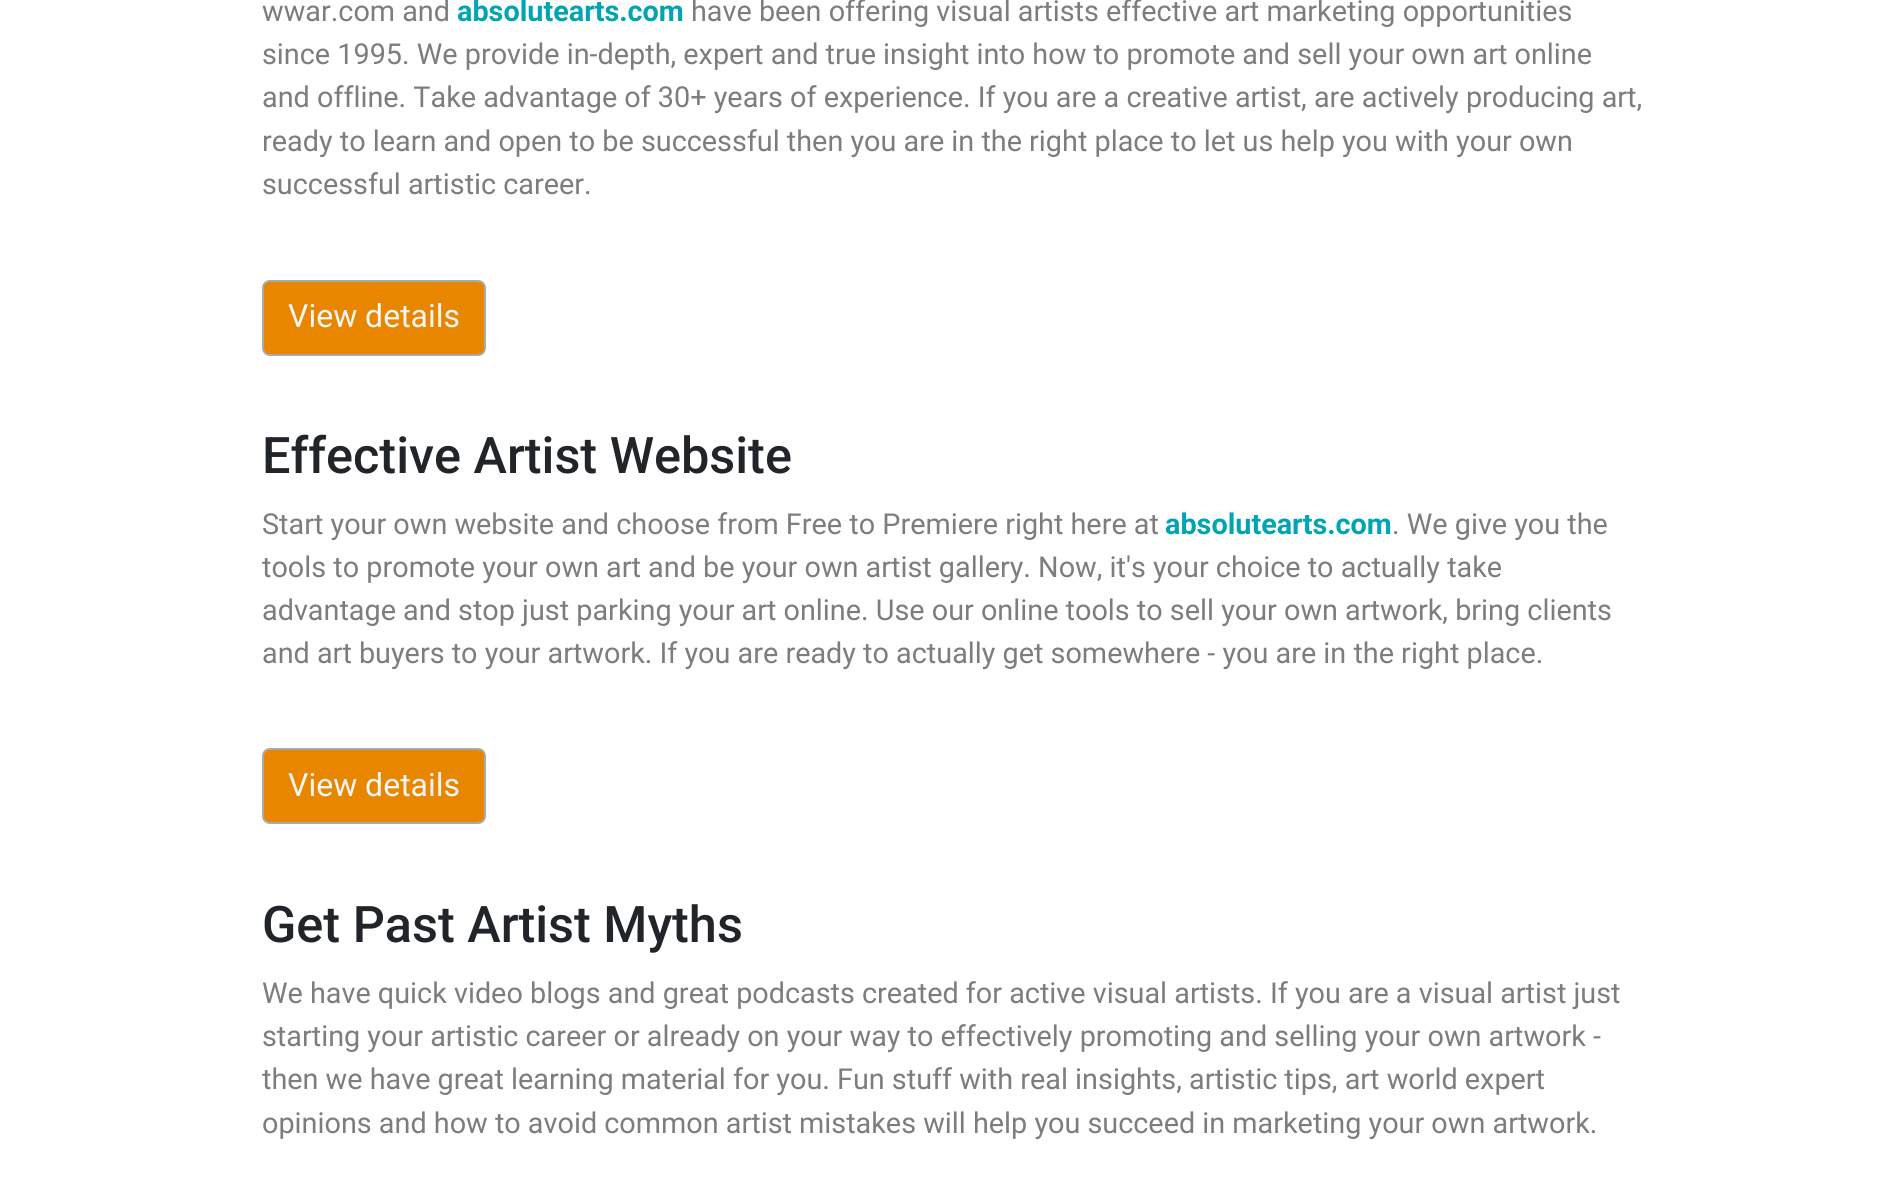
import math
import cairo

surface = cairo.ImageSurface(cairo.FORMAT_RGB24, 1904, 1193)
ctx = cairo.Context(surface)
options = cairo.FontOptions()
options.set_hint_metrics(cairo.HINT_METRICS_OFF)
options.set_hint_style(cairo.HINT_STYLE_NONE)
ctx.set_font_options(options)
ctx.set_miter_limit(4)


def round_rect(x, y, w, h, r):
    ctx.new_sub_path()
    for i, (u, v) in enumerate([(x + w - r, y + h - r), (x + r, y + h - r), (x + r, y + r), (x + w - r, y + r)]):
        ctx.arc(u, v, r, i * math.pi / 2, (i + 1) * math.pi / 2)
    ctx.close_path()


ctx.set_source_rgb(1, 1, 1)
ctx.paint()
ctx.select_font_face("Roboto")
ctx.set_font_size(28.8)
ctx.set_source_rgb(0.49, 0.49, 0.49)
ctx.move_to(262, 21)
ctx.show_text("wwar.com and")
ctx.select_font_face("Roboto", cairo.FONT_SLANT_NORMAL, cairo.FONT_WEIGHT_BOLD)
ctx.set_source_rgb(0, 0.643, 0.702)
ctx.move_to(457, 21)
ctx.show_text("absolutearts.com")
ctx.select_font_face("Roboto")
ctx.set_source_rgb(0.49, 0.49, 0.49)
ctx.move_to(691, 21)
ctx.show_text("have been offering visual artists effective art marketing opportunities")
ctx.move_to(262, 64)
ctx.show_text("since 1995. We provide in-depth, expert and true insight into how to promote and sell your own art online")
ctx.move_to(262, 107)
ctx.show_text("and offline. Take advantage of 30+ years of experience. If you are a creative artist, are actively producing art,")
ctx.move_to(262, 151)
ctx.show_text("ready to learn and open to be successful then you are in the right place to let us help you with your own")
ctx.move_to(262, 194)
ctx.show_text("successful artistic career.")
ctx.set_source_rgb(0.914, 0.525, 0)
round_rect(263, 281, 222, 74, 7)
ctx.fill_preserve()
ctx.set_source_rgb(0.667, 0.667, 0.667)
ctx.stroke()
ctx.set_font_size(32)
ctx.set_source_rgb(0.961, 0.961, 0.961)
ctx.move_to(288, 327)
ctx.show_text("View details")
ctx.select_font_face("Roboto Medium")
ctx.set_font_size(50.4)
ctx.set_source_rgb(0.129, 0.145, 0.161)
ctx.move_to(262, 473)
ctx.show_text("Effective Artist Website")
ctx.select_font_face("Roboto")
ctx.set_font_size(28.8)
ctx.set_source_rgb(0.49, 0.49, 0.49)
ctx.move_to(262, 534)
ctx.show_text("Start your own website and choose from Free to Premiere right here at")
ctx.select_font_face("Roboto", cairo.FONT_SLANT_NORMAL, cairo.FONT_WEIGHT_BOLD)
ctx.set_source_rgb(0, 0.643, 0.702)
ctx.move_to(1165, 534)
ctx.show_text("absolutearts.com")
ctx.select_font_face("Roboto")
ctx.set_source_rgb(0.49, 0.49, 0.49)
ctx.move_to(1392, 534)
ctx.show_text(". We give you the")
ctx.move_to(262, 577)
ctx.show_text("tools to promote your own art and be your own artist gallery. Now, it's your choice to actually take")
ctx.move_to(262, 620)
ctx.show_text("advantage and stop just parking your art online. Use our online tools to sell your own artwork, bring clients")
ctx.move_to(262, 663)
ctx.show_text("and art buyers to your artwork. If you are ready to actually get somewhere - you are in the right place.")
ctx.set_source_rgb(0.914, 0.525, 0)
round_rect(263, 749, 222, 74, 7)
ctx.fill_preserve()
ctx.set_source_rgb(0.667, 0.667, 0.667)
ctx.stroke()
ctx.set_font_size(32)
ctx.set_source_rgb(0.961, 0.961, 0.961)
ctx.move_to(288, 796)
ctx.show_text("View details")
ctx.select_font_face("Roboto Medium")
ctx.set_font_size(50.4)
ctx.set_source_rgb(0.129, 0.145, 0.161)
ctx.move_to(262, 942)
ctx.show_text("Get Past Artist Myths")
ctx.select_font_face("Roboto")
ctx.set_font_size(28.8)
ctx.set_source_rgb(0.49, 0.49, 0.49)
ctx.move_to(262, 1003)
ctx.show_text("We have quick video blogs and great podcasts created for active visual artists. If you are a visual artist just")
ctx.move_to(262, 1046)
ctx.show_text("starting your artistic career or already on your way to effectively promoting and selling your own artwork -")
ctx.move_to(262, 1089)
ctx.show_text("then we have great learning material for you. Fun stuff with real insights, artistic tips, art world expert")
ctx.move_to(262, 1133)
ctx.show_text("opinions and how to avoid common artist mistakes will help you succeed in marketing your own artwork.")
surface.write_to_png("page.png")
